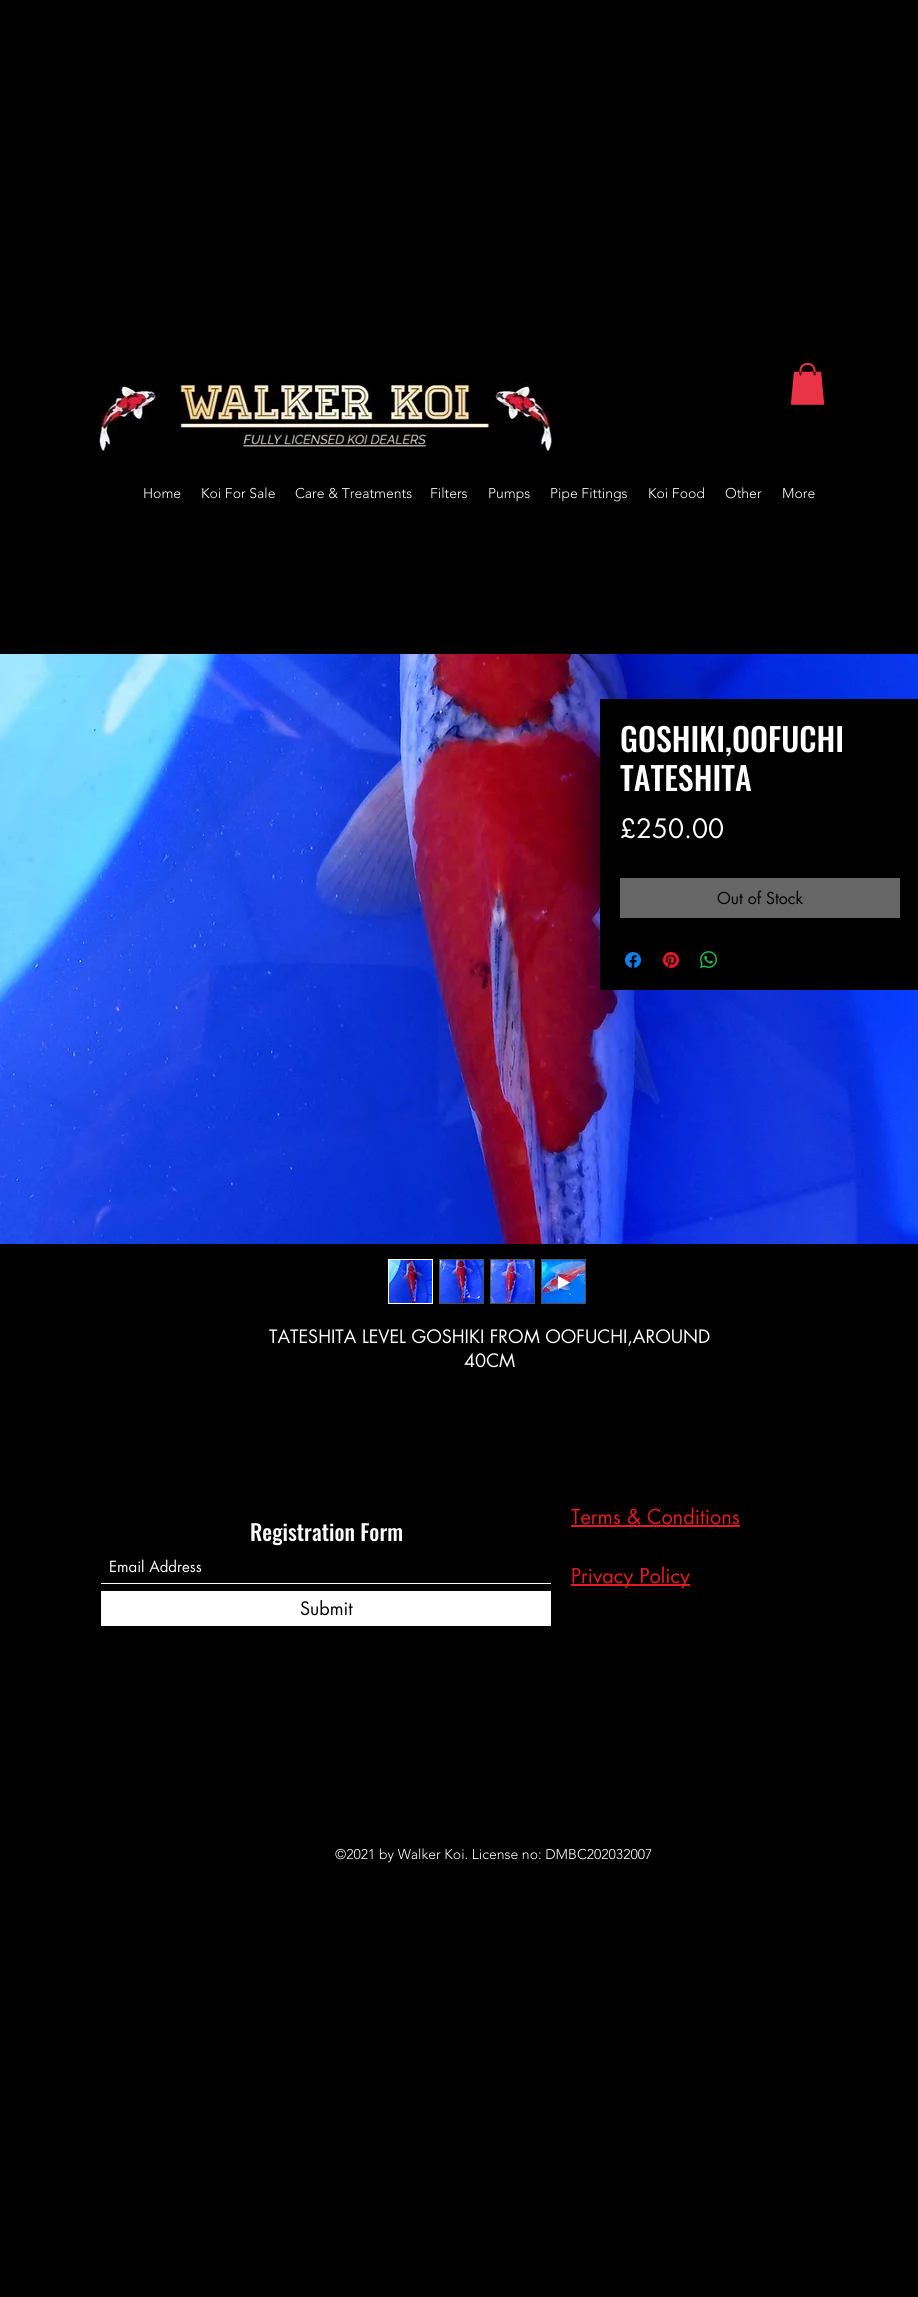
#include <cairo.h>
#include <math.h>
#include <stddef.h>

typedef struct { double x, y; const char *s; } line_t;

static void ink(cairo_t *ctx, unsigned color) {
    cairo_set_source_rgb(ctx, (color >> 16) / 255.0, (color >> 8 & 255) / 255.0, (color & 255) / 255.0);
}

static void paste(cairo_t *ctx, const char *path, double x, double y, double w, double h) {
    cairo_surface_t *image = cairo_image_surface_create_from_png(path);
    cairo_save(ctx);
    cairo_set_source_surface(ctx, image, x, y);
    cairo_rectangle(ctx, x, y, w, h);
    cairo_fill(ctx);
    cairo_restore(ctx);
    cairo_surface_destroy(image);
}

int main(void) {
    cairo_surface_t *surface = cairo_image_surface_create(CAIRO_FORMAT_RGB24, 918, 2297);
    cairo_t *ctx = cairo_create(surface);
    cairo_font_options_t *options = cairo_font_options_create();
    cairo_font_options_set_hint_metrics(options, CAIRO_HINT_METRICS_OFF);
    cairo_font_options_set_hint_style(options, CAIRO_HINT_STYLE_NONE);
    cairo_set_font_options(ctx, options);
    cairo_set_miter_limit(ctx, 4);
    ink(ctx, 0x000000);
    cairo_paint(ctx);
    paste(ctx, "media/1.png", 95, 383, 460, 68);
    paste(ctx, "media/2.png", 790, 363, 35, 42);
    cairo_select_font_face(ctx, "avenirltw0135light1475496 Light", CAIRO_FONT_SLANT_NORMAL, CAIRO_FONT_WEIGHT_NORMAL);
    cairo_set_font_size(ctx, 14);
    ink(ctx, 0xFFFFFF);
    {
        static const line_t items[] = {
            {143, 498, "Home"},
            {201, 498, "Koi For Sale"},
            {295, 498, "Care & Treatments"},
            {430, 498, "Filters"},
            {488, 498, "Pumps"},
            {550, 498, "Pipe Fittings"},
            {648, 498, "Koi Food"},
            {725, 498, "Other"},
            {782, 498, "More"},
        };
        for (size_t i = 0; i < sizeof items / sizeof *items; i++) {
            cairo_move_to(ctx, items[i].x, items[i].y);
            cairo_show_text(ctx, items[i].s);
        }
    }
    paste(ctx, "media/3.png", 0, 654, 918, 590);
    cairo_rectangle(ctx, 388.5, 1259.5, 44, 44);
    cairo_set_line_width(ctx, 1);
    cairo_stroke(ctx);
    paste(ctx, "media/4.png", 389, 1260, 43, 43);
    cairo_rectangle(ctx, 439.5, 1259.5, 44, 44);
    ink(ctx, 0x525252);
    cairo_stroke(ctx);
    paste(ctx, "media/5.png", 440, 1260, 43, 43);
    cairo_rectangle(ctx, 490.5, 1259.5, 44, 44);
    cairo_stroke(ctx);
    paste(ctx, "media/6.png", 491, 1260, 43, 43);
    cairo_rectangle(ctx, 541.5, 1259.5, 44, 44);
    cairo_stroke(ctx);
    paste(ctx, "media/7.png", 542, 1260, 43, 43);
    ink(ctx, 0xFFFFFF);
    cairo_new_path(ctx);
    cairo_move_to(ctx, 558, 1276);
    cairo_line_to(ctx, 558, 1289);
    cairo_line_to(ctx, 570, 1282.5);
    cairo_close_path(ctx);
    cairo_fill(ctx);
    ink(ctx, 0x000000);
    cairo_rectangle(ctx, 600, 699, 318, 291);
    cairo_fill(ctx);
    cairo_select_font_face(ctx, "Oswald Medium", CAIRO_FONT_SLANT_NORMAL, CAIRO_FONT_WEIGHT_NORMAL);
    cairo_set_font_size(ctx, 32);
    ink(ctx, 0xFFFFFF);
    cairo_move_to(ctx, 620, 752);
    cairo_show_text(ctx, "GOSHIKI,OOFUCHI");
    cairo_move_to(ctx, 620, 791);
    cairo_show_text(ctx, "TATESHITA");
    cairo_select_font_face(ctx, "futura", CAIRO_FONT_SLANT_NORMAL, CAIRO_FONT_WEIGHT_NORMAL);
    cairo_set_font_size(ctx, 26);
    cairo_move_to(ctx, 620, 838);
    cairo_show_text(ctx, "£250.00");
    ink(ctx, 0x666666);
    cairo_rectangle(ctx, 620, 878, 280, 40);
    cairo_fill(ctx);
    cairo_set_font_size(ctx, 16);
    ink(ctx, 0x000000);
    cairo_move_to(ctx, 717, 904);
    cairo_show_text(ctx, "Out of Stock");
    paste(ctx, "media/8.png", 625, 952, 16, 16);
    paste(ctx, "media/9.png", 663, 952, 16, 16);
    paste(ctx, "media/10.png", 700, 951, 17, 17);
    cairo_set_font_size(ctx, 18);
    ink(ctx, 0xFFFFFF);
    cairo_move_to(ctx, 269, 1343);
    cairo_show_text(ctx, "TATESHITA LEVEL GOSHIKI FROM OOFUCHI,AROUND");
    cairo_move_to(ctx, 464, 1367);
    cairo_show_text(ctx, "40CM");
    cairo_set_font_size(ctx, 20);
    ink(ctx, 0xE21C21);
    cairo_move_to(ctx, 571, 1524);
    cairo_show_text(ctx, "Terms & Conditions");
    cairo_rectangle(ctx, 571, 1525, 169, 2);
    cairo_fill(ctx);
    cairo_select_font_face(ctx, "Oswald Medium", CAIRO_FONT_SLANT_NORMAL, CAIRO_FONT_WEIGHT_NORMAL);
    cairo_set_font_size(ctx, 22);
    ink(ctx, 0xFFFFFF);
    cairo_move_to(ctx, 250, 1541);
    cairo_show_text(ctx, "Registration Form");
    cairo_rectangle(ctx, 101, 1583, 450, 1);
    cairo_fill(ctx);
    cairo_select_font_face(ctx, "futura", CAIRO_FONT_SLANT_NORMAL, CAIRO_FONT_WEIGHT_NORMAL);
    cairo_set_font_size(ctx, 15);
    cairo_move_to(ctx, 109, 1572);
    cairo_show_text(ctx, "Email Address");
    cairo_rectangle(ctx, 101, 1591, 450, 35);
    cairo_fill(ctx);
    cairo_set_font_size(ctx, 18);
    ink(ctx, 0x000000);
    cairo_move_to(ctx, 300, 1615);
    cairo_show_text(ctx, "Submit");
    ink(ctx, 0xE21C21);
    cairo_rectangle(ctx, 571, 1584, 119, 2);
    cairo_fill(ctx);
    cairo_set_font_size(ctx, 20);
    cairo_move_to(ctx, 571, 1583);
    cairo_show_text(ctx, "Privacy Policy");
    cairo_select_font_face(ctx, "avenirltw0135light1475496 Light", CAIRO_FONT_SLANT_NORMAL, CAIRO_FONT_WEIGHT_NORMAL);
    cairo_set_font_size(ctx, 14);
    ink(ctx, 0xFFFFFF);
    cairo_move_to(ctx, 335, 1859);
    cairo_show_text(ctx, "©2021 by Walker Koi. License no: DMBC202032007");
    cairo_surface_write_to_png(surface, "image.png");
    cairo_font_options_destroy(options);
    cairo_destroy(ctx);
    cairo_surface_destroy(surface);
    return 0;
}
